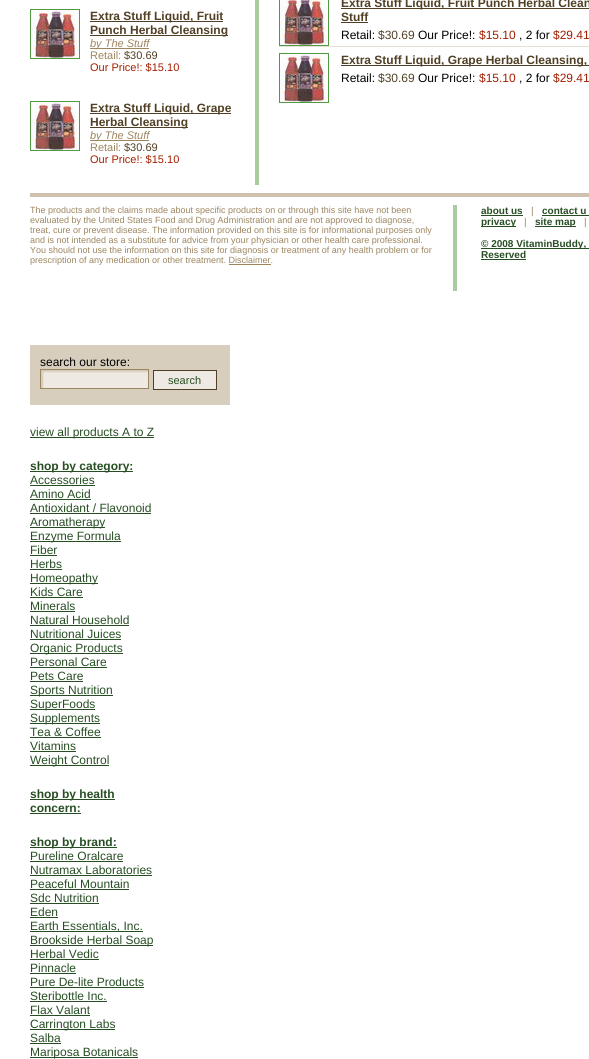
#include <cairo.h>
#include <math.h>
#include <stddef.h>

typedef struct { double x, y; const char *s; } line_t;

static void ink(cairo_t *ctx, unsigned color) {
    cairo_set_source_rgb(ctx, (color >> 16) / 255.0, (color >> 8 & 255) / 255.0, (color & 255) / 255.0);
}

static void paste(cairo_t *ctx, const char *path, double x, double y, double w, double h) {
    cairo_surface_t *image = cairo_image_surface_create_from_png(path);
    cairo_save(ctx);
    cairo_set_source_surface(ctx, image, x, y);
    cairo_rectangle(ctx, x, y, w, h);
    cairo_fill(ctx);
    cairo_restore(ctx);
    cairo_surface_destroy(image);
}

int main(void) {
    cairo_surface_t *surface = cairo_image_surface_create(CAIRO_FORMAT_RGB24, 589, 1059);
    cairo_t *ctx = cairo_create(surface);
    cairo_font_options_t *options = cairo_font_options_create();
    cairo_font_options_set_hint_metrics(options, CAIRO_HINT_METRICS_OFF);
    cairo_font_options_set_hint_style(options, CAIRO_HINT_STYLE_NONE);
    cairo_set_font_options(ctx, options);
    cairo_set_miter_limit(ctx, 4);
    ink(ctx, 0xFFFFFF);
    cairo_paint(ctx);
    ink(ctx, 0xA7CDA1);
    cairo_rectangle(ctx, 255, 0, 4, 185);
    cairo_fill(ctx);
    cairo_rectangle(ctx, 30.5, 9.5, 49, 49);
    ink(ctx, 0x4F9A43);
    cairo_set_line_width(ctx, 1);
    cairo_stroke(ctx);
    paste(ctx, "media/1.png", 31, 10, 48, 48);
    ink(ctx, 0x514025);
    cairo_rectangle(ctx, 90, 21, 133, 1);
    cairo_fill(ctx);
    cairo_select_font_face(ctx, "Liberation Sans", CAIRO_FONT_SLANT_NORMAL, CAIRO_FONT_WEIGHT_BOLD);
    cairo_set_font_size(ctx, 12);
    cairo_move_to(ctx, 90, 20);
    cairo_show_text(ctx, "Extra Stuff Liquid, Fruit");
    cairo_rectangle(ctx, 90, 35, 138, 1);
    cairo_fill(ctx);
    cairo_move_to(ctx, 90, 34);
    cairo_show_text(ctx, "Punch Herbal Cleansing");
    ink(ctx, 0x9C855F);
    cairo_rectangle(ctx, 90, 48, 59, 1);
    cairo_fill(ctx);
    cairo_select_font_face(ctx, "Liberation Sans", CAIRO_FONT_SLANT_ITALIC, CAIRO_FONT_WEIGHT_NORMAL);
    cairo_set_font_size(ctx, 11);
    cairo_move_to(ctx, 90, 47);
    cairo_show_text(ctx, "by The Stuff");
    cairo_select_font_face(ctx, "Liberation Sans", CAIRO_FONT_SLANT_NORMAL, CAIRO_FONT_WEIGHT_NORMAL);
    cairo_move_to(ctx, 90, 59);
    cairo_show_text(ctx, "Retail:");
    ink(ctx, 0x514025);
    cairo_move_to(ctx, 124, 59);
    cairo_show_text(ctx, "$30.69");
    ink(ctx, 0xA31E00);
    cairo_move_to(ctx, 90, 71);
    cairo_show_text(ctx, "Our Price!: $15.10");
    cairo_rectangle(ctx, 30.5, 101.5, 49, 49);
    ink(ctx, 0x4F9A43);
    cairo_stroke(ctx);
    paste(ctx, "media/1.png", 31, 102, 48, 48);
    ink(ctx, 0x514025);
    cairo_rectangle(ctx, 90, 113, 141, 1);
    cairo_fill(ctx);
    cairo_select_font_face(ctx, "Liberation Sans", CAIRO_FONT_SLANT_NORMAL, CAIRO_FONT_WEIGHT_BOLD);
    cairo_set_font_size(ctx, 12);
    cairo_move_to(ctx, 90, 112);
    cairo_show_text(ctx, "Extra Stuff Liquid, Grape");
    cairo_rectangle(ctx, 90, 127, 98, 1);
    cairo_fill(ctx);
    cairo_move_to(ctx, 90, 126);
    cairo_show_text(ctx, "Herbal Cleansing");
    ink(ctx, 0x9C855F);
    cairo_rectangle(ctx, 90, 140, 59, 1);
    cairo_fill(ctx);
    cairo_select_font_face(ctx, "Liberation Sans", CAIRO_FONT_SLANT_ITALIC, CAIRO_FONT_WEIGHT_NORMAL);
    cairo_set_font_size(ctx, 11);
    cairo_move_to(ctx, 90, 139);
    cairo_show_text(ctx, "by The Stuff");
    cairo_select_font_face(ctx, "Liberation Sans", CAIRO_FONT_SLANT_NORMAL, CAIRO_FONT_WEIGHT_NORMAL);
    cairo_move_to(ctx, 90, 151);
    cairo_show_text(ctx, "Retail:");
    ink(ctx, 0x514025);
    cairo_move_to(ctx, 124, 151);
    cairo_show_text(ctx, "$30.69");
    ink(ctx, 0xA31E00);
    cairo_move_to(ctx, 90, 163);
    cairo_show_text(ctx, "Our Price!: $15.10");
    cairo_rectangle(ctx, 279.5, -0.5, 49, 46);
    ink(ctx, 0x4F9A43);
    cairo_stroke(ctx);
    paste(ctx, "media/2.png", 280, 0, 48, 45);
    ink(ctx, 0x514025);
    cairo_rectangle(ctx, 341, 8, 248, 1);
    cairo_fill(ctx);
    cairo_select_font_face(ctx, "Liberation Sans", CAIRO_FONT_SLANT_NORMAL, CAIRO_FONT_WEIGHT_BOLD);
    cairo_set_font_size(ctx, 12);
    cairo_move_to(ctx, 341, 7);
    cairo_show_text(ctx, "Extra Stuff Liquid, Fruit Punch Herbal Clean");
    cairo_move_to(ctx, 341, 21);
    cairo_show_text(ctx, "Stuff");
    cairo_rectangle(ctx, 341, 22, 27, 1);
    cairo_fill(ctx);
    cairo_select_font_face(ctx, "Liberation Sans", CAIRO_FONT_SLANT_NORMAL, CAIRO_FONT_WEIGHT_NORMAL);
    ink(ctx, 0x000000);
    cairo_move_to(ctx, 341, 39);
    cairo_show_text(ctx, "Retail:");
    ink(ctx, 0x514025);
    cairo_move_to(ctx, 378, 39);
    cairo_show_text(ctx, "$30.69");
    ink(ctx, 0x000000);
    cairo_move_to(ctx, 418, 39);
    cairo_show_text(ctx, "Our Price!:");
    ink(ctx, 0xA31E00);
    cairo_move_to(ctx, 479, 39);
    cairo_show_text(ctx, "$15.10");
    ink(ctx, 0x000000);
    cairo_move_to(ctx, 519, 39);
    cairo_show_text(ctx, ", 2 for");
    ink(ctx, 0xA31E00);
    cairo_move_to(ctx, 553, 39);
    cairo_show_text(ctx, "$29.41");
    ink(ctx, 0xE6DFD5);
    cairo_rectangle(ctx, 279, 46, 310, 1);
    cairo_fill(ctx);
    cairo_rectangle(ctx, 279.5, 53.5, 49, 49);
    ink(ctx, 0x4F9A43);
    cairo_stroke(ctx);
    paste(ctx, "media/1.png", 280, 54, 48, 48);
    ink(ctx, 0x514025);
    cairo_rectangle(ctx, 341, 65, 248, 1);
    cairo_fill(ctx);
    cairo_select_font_face(ctx, "Liberation Sans", CAIRO_FONT_SLANT_NORMAL, CAIRO_FONT_WEIGHT_BOLD);
    cairo_move_to(ctx, 341, 64);
    cairo_show_text(ctx, "Extra Stuff Liquid, Grape Herbal Cleansing,");
    cairo_select_font_face(ctx, "Liberation Sans", CAIRO_FONT_SLANT_NORMAL, CAIRO_FONT_WEIGHT_NORMAL);
    ink(ctx, 0x000000);
    cairo_move_to(ctx, 341, 82);
    cairo_show_text(ctx, "Retail:");
    ink(ctx, 0x514025);
    cairo_move_to(ctx, 378, 82);
    cairo_show_text(ctx, "$30.69");
    ink(ctx, 0x000000);
    cairo_move_to(ctx, 418, 82);
    cairo_show_text(ctx, "Our Price!:");
    ink(ctx, 0xA31E00);
    cairo_move_to(ctx, 479, 82);
    cairo_show_text(ctx, "$15.10");
    ink(ctx, 0x000000);
    cairo_move_to(ctx, 519, 82);
    cairo_show_text(ctx, ", 2 for");
    ink(ctx, 0xA31E00);
    cairo_move_to(ctx, 553, 82);
    cairo_show_text(ctx, "$29.41");
    paste(ctx, "media/3.png", 30, 185, 559, 160);
    cairo_set_font_size(ctx, 9);
    ink(ctx, 0x9C855F);
    {
        static const line_t items[] = {
            {30, 213, "The products and the claims made about specific products on or through this site have not been"},
            {30, 223, "evaluated by the United States Food and Drug Administration and are not approved to diagnose,"},
            {30, 233, "treat, cure or prevent disease. The information provided on this site is for informational purposes only"},
            {30, 243, "and is not intended as a substitute for advice from your physician or other health care professional."},
            {30, 253, "You should not use the information on this site for diagnosis or treatment of any health problem or for"},
            {30, 263, "prescription of any medication or other treatment. Disclaimer."},
        };
        for (size_t i = 0; i < sizeof items / sizeof *items; i++) {
            cairo_move_to(ctx, items[i].x, items[i].y);
            cairo_show_text(ctx, items[i].s);
        }
    }
    cairo_rectangle(ctx, 229, 264, 42, 1);
    cairo_fill(ctx);
    cairo_select_font_face(ctx, "Liberation Sans", CAIRO_FONT_SLANT_NORMAL, CAIRO_FONT_WEIGHT_BOLD);
    cairo_set_font_size(ctx, 10);
    ink(ctx, 0x274E23);
    cairo_move_to(ctx, 481, 214);
    cairo_show_text(ctx, "about us");
    cairo_rectangle(ctx, 481, 215, 42, 1);
    cairo_fill(ctx);
    cairo_select_font_face(ctx, "Liberation Sans", CAIRO_FONT_SLANT_NORMAL, CAIRO_FONT_WEIGHT_NORMAL);
    ink(ctx, 0x9C855F);
    cairo_move_to(ctx, 531, 214);
    cairo_show_text(ctx, "|");
    cairo_select_font_face(ctx, "Liberation Sans", CAIRO_FONT_SLANT_NORMAL, CAIRO_FONT_WEIGHT_BOLD);
    ink(ctx, 0x274E23);
    cairo_move_to(ctx, 542, 214);
    cairo_show_text(ctx, "contact u");
    cairo_rectangle(ctx, 542, 215, 47, 1);
    cairo_fill(ctx);
    cairo_rectangle(ctx, 481, 226, 35, 1);
    cairo_fill(ctx);
    cairo_move_to(ctx, 481, 225);
    cairo_show_text(ctx, "privacy");
    cairo_select_font_face(ctx, "Liberation Sans", CAIRO_FONT_SLANT_NORMAL, CAIRO_FONT_WEIGHT_NORMAL);
    ink(ctx, 0x9C855F);
    cairo_move_to(ctx, 524, 225);
    cairo_show_text(ctx, "|");
    ink(ctx, 0x274E23);
    cairo_rectangle(ctx, 535, 226, 41, 1);
    cairo_fill(ctx);
    cairo_select_font_face(ctx, "Liberation Sans", CAIRO_FONT_SLANT_NORMAL, CAIRO_FONT_WEIGHT_BOLD);
    cairo_move_to(ctx, 535, 225);
    cairo_show_text(ctx, "site map");
    cairo_select_font_face(ctx, "Liberation Sans", CAIRO_FONT_SLANT_NORMAL, CAIRO_FONT_WEIGHT_NORMAL);
    ink(ctx, 0x9C855F);
    cairo_move_to(ctx, 584, 225);
    cairo_show_text(ctx, "|");
    ink(ctx, 0x274E23);
    cairo_rectangle(ctx, 481, 248, 108, 1);
    cairo_fill(ctx);
    cairo_select_font_face(ctx, "Liberation Sans", CAIRO_FONT_SLANT_NORMAL, CAIRO_FONT_WEIGHT_BOLD);
    cairo_move_to(ctx, 481, 247);
    cairo_show_text(ctx, "© 2008 VitaminBuddy,");
    cairo_move_to(ctx, 481, 258);
    cairo_show_text(ctx, "Reserved");
    cairo_rectangle(ctx, 481, 259, 45, 1);
    cairo_fill(ctx);
    ink(ctx, 0xD8CEBE);
    cairo_rectangle(ctx, 30, 345, 200, 60);
    cairo_fill(ctx);
    cairo_select_font_face(ctx, "Liberation Sans", CAIRO_FONT_SLANT_NORMAL, CAIRO_FONT_WEIGHT_NORMAL);
    cairo_set_font_size(ctx, 12);
    ink(ctx, 0x000000);
    cairo_move_to(ctx, 40, 366);
    cairo_show_text(ctx, "search our store:");
    paste(ctx, "media/4.png", 41, 370, 107, 18);
    cairo_rectangle(ctx, 40.5, 369.5, 108, 19);
    ink(ctx, 0x9C855F);
    cairo_stroke(ctx);
    ink(ctx, 0xEEE9E2);
    cairo_rectangle(ctx, 153.5, 370.5, 63, 19);
    cairo_fill_preserve(ctx);
    ink(ctx, 0x514025);
    cairo_stroke(ctx);
    cairo_set_font_size(ctx, 11);
    ink(ctx, 0x274E23);
    cairo_move_to(ctx, 168, 384);
    cairo_show_text(ctx, "search");
    cairo_rectangle(ctx, 30, 437, 124, 1);
    cairo_fill(ctx);
    cairo_set_font_size(ctx, 12);
    cairo_move_to(ctx, 30, 436);
    cairo_show_text(ctx, "view all products A to Z");
    cairo_rectangle(ctx, 30, 471, 103, 1);
    cairo_fill(ctx);
    cairo_select_font_face(ctx, "Liberation Sans", CAIRO_FONT_SLANT_NORMAL, CAIRO_FONT_WEIGHT_BOLD);
    cairo_move_to(ctx, 30, 470);
    cairo_show_text(ctx, "shop by category:");
    cairo_select_font_face(ctx, "Liberation Sans", CAIRO_FONT_SLANT_NORMAL, CAIRO_FONT_WEIGHT_NORMAL);
    cairo_move_to(ctx, 30, 484);
    cairo_show_text(ctx, "Accessories");
    cairo_rectangle(ctx, 30, 485, 65, 1);
    cairo_fill(ctx);
    cairo_move_to(ctx, 30, 498);
    cairo_show_text(ctx, "Amino Acid");
    cairo_rectangle(ctx, 30, 499, 61, 1);
    cairo_fill(ctx);
    cairo_move_to(ctx, 30, 512);
    cairo_show_text(ctx, "Antioxidant / Flavonoid");
    cairo_rectangle(ctx, 30, 513, 121, 1);
    cairo_fill(ctx);
    cairo_rectangle(ctx, 30, 527, 75, 1);
    cairo_fill(ctx);
    cairo_move_to(ctx, 30, 526);
    cairo_show_text(ctx, "Aromatherapy");
    cairo_rectangle(ctx, 30, 541, 91, 1);
    cairo_fill(ctx);
    cairo_move_to(ctx, 30, 540);
    cairo_show_text(ctx, "Enzyme Formula");
    cairo_move_to(ctx, 30, 554);
    cairo_show_text(ctx, "Fiber");
    cairo_rectangle(ctx, 30, 555, 27, 1);
    cairo_fill(ctx);
    cairo_move_to(ctx, 30, 568);
    cairo_show_text(ctx, "Herbs");
    cairo_rectangle(ctx, 30, 569, 32, 1);
    cairo_fill(ctx);
    cairo_rectangle(ctx, 30, 583, 68, 1);
    cairo_fill(ctx);
    cairo_move_to(ctx, 30, 582);
    cairo_show_text(ctx, "Homeopathy");
    cairo_move_to(ctx, 30, 596);
    cairo_show_text(ctx, "Kids Care");
    cairo_rectangle(ctx, 30, 597, 53, 1);
    cairo_fill(ctx);
    cairo_move_to(ctx, 30, 610);
    cairo_show_text(ctx, "Minerals");
    cairo_rectangle(ctx, 30, 611, 45, 1);
    cairo_fill(ctx);
    cairo_move_to(ctx, 30, 624);
    cairo_show_text(ctx, "Natural Household");
    cairo_rectangle(ctx, 30, 625, 99, 1);
    cairo_fill(ctx);
    cairo_move_to(ctx, 30, 638);
    cairo_show_text(ctx, "Nutritional Juices");
    cairo_rectangle(ctx, 30, 639, 91, 1);
    cairo_fill(ctx);
    cairo_rectangle(ctx, 30, 653, 93, 1);
    cairo_fill(ctx);
    cairo_move_to(ctx, 30, 652);
    cairo_show_text(ctx, "Organic Products");
    cairo_move_to(ctx, 30, 666);
    cairo_show_text(ctx, "Personal Care");
    cairo_rectangle(ctx, 30, 667, 77, 1);
    cairo_fill(ctx);
    cairo_move_to(ctx, 30, 680);
    cairo_show_text(ctx, "Pets Care");
    cairo_rectangle(ctx, 30, 681, 53, 1);
    cairo_fill(ctx);
    cairo_rectangle(ctx, 30, 695, 83, 1);
    cairo_fill(ctx);
    cairo_move_to(ctx, 30, 694);
    cairo_show_text(ctx, "Sports Nutrition");
    cairo_rectangle(ctx, 30, 709, 65, 1);
    cairo_fill(ctx);
    cairo_move_to(ctx, 30, 708);
    cairo_show_text(ctx, "SuperFoods");
    cairo_rectangle(ctx, 30, 723, 70, 1);
    cairo_fill(ctx);
    cairo_move_to(ctx, 30, 722);
    cairo_show_text(ctx, "Supplements");
    cairo_move_to(ctx, 30, 736);
    cairo_show_text(ctx, "Tea & Coffee");
    cairo_rectangle(ctx, 30, 737, 71, 1);
    cairo_fill(ctx);
    cairo_move_to(ctx, 30, 750);
    cairo_show_text(ctx, "Vitamins");
    cairo_rectangle(ctx, 30, 751, 46, 1);
    cairo_fill(ctx);
    cairo_rectangle(ctx, 30, 765, 79, 1);
    cairo_fill(ctx);
    cairo_move_to(ctx, 30, 764);
    cairo_show_text(ctx, "Weight Control");
    cairo_rectangle(ctx, 30, 799, 85, 1);
    cairo_fill(ctx);
    cairo_select_font_face(ctx, "Liberation Sans", CAIRO_FONT_SLANT_NORMAL, CAIRO_FONT_WEIGHT_BOLD);
    cairo_move_to(ctx, 30, 798);
    cairo_show_text(ctx, "shop by health");
    cairo_move_to(ctx, 30, 812);
    cairo_show_text(ctx, "concern:");
    cairo_rectangle(ctx, 30, 813, 51, 1);
    cairo_fill(ctx);
    cairo_rectangle(ctx, 30, 847, 87, 1);
    cairo_fill(ctx);
    cairo_move_to(ctx, 30, 846);
    cairo_show_text(ctx, "shop by brand:");
    cairo_select_font_face(ctx, "Liberation Sans", CAIRO_FONT_SLANT_NORMAL, CAIRO_FONT_WEIGHT_NORMAL);
    cairo_move_to(ctx, 30, 860);
    cairo_show_text(ctx, "Pureline Oralcare");
    cairo_rectangle(ctx, 30, 861, 93, 1);
    cairo_fill(ctx);
    cairo_move_to(ctx, 30, 874);
    cairo_show_text(ctx, "Nutramax Laboratories");
    cairo_rectangle(ctx, 30, 875, 122, 1);
    cairo_fill(ctx);
    cairo_move_to(ctx, 30, 888);
    cairo_show_text(ctx, "Peaceful Mountain");
    cairo_rectangle(ctx, 30, 889, 99, 1);
    cairo_fill(ctx);
    cairo_move_to(ctx, 30, 902);
    cairo_show_text(ctx, "Sdc Nutrition");
    cairo_rectangle(ctx, 30, 903, 69, 1);
    cairo_fill(ctx);
    cairo_move_to(ctx, 30, 916);
    cairo_show_text(ctx, "Eden");
    cairo_rectangle(ctx, 30, 917, 28, 1);
    cairo_fill(ctx);
    cairo_rectangle(ctx, 30, 931, 113, 1);
    cairo_fill(ctx);
    cairo_move_to(ctx, 30, 930);
    cairo_show_text(ctx, "Earth Essentials, Inc.");
    cairo_rectangle(ctx, 30, 945, 123, 1);
    cairo_fill(ctx);
    cairo_move_to(ctx, 30, 944);
    cairo_show_text(ctx, "Brookside Herbal Soap");
    cairo_move_to(ctx, 30, 958);
    cairo_show_text(ctx, "Herbal Vedic");
    cairo_rectangle(ctx, 30, 959, 69, 1);
    cairo_fill(ctx);
    cairo_move_to(ctx, 30, 972);
    cairo_show_text(ctx, "Pinnacle");
    cairo_rectangle(ctx, 30, 973, 46, 1);
    cairo_fill(ctx);
    cairo_move_to(ctx, 30, 986);
    cairo_show_text(ctx, "Pure De-lite Products");
    cairo_rectangle(ctx, 30, 987, 114, 1);
    cairo_fill(ctx);
    cairo_move_to(ctx, 30, 1000);
    cairo_show_text(ctx, "Steribottle Inc.");
    cairo_rectangle(ctx, 30, 1001, 77, 1);
    cairo_fill(ctx);
    cairo_move_to(ctx, 30, 1014);
    cairo_show_text(ctx, "Flax Valant");
    cairo_rectangle(ctx, 30, 1015, 60, 1);
    cairo_fill(ctx);
    cairo_rectangle(ctx, 30, 1029, 85, 1);
    cairo_fill(ctx);
    cairo_move_to(ctx, 30, 1028);
    cairo_show_text(ctx, "Carrington Labs");
    cairo_move_to(ctx, 30, 1042);
    cairo_show_text(ctx, "Salba");
    cairo_rectangle(ctx, 30, 1043, 31, 1);
    cairo_fill(ctx);
    cairo_rectangle(ctx, 30, 1057, 108, 1);
    cairo_fill(ctx);
    cairo_move_to(ctx, 30, 1056);
    cairo_show_text(ctx, "Mariposa Botanicals");
    cairo_surface_write_to_png(surface, "image.png");
    cairo_font_options_destroy(options);
    cairo_destroy(ctx);
    cairo_surface_destroy(surface);
    return 0;
}
